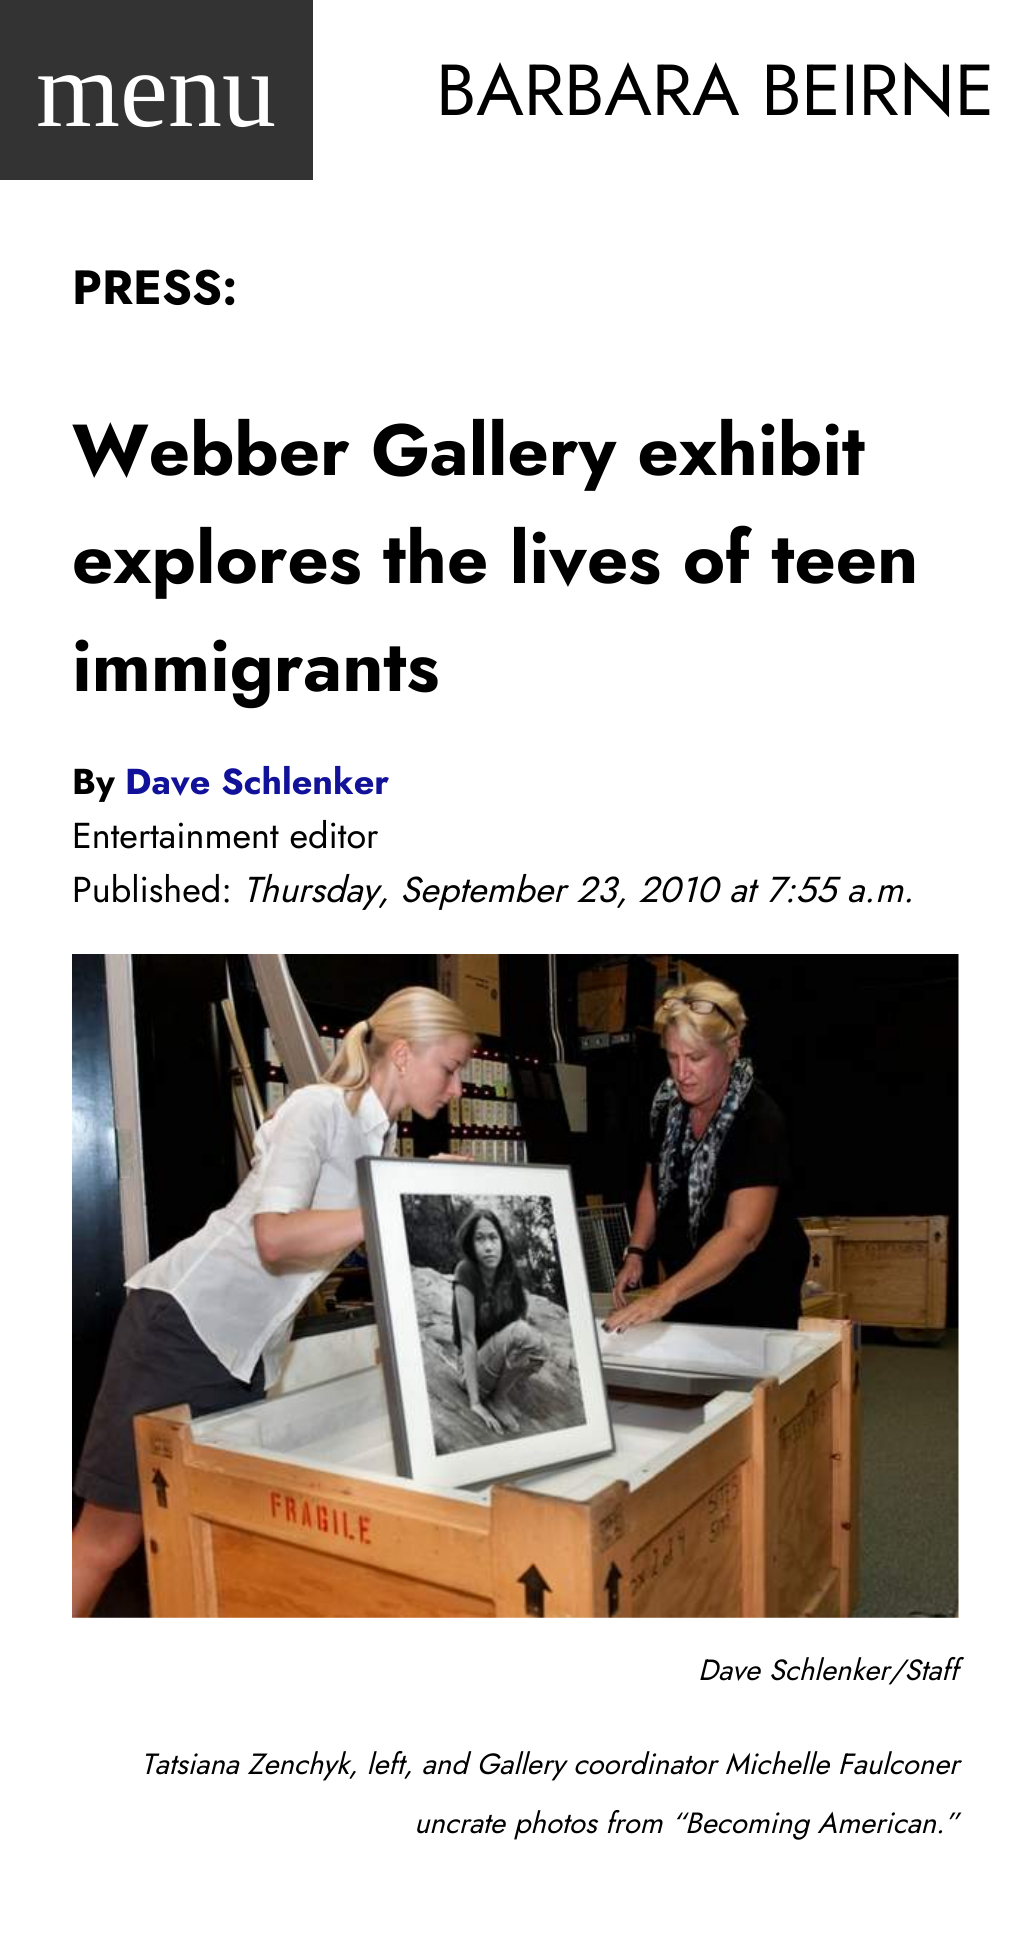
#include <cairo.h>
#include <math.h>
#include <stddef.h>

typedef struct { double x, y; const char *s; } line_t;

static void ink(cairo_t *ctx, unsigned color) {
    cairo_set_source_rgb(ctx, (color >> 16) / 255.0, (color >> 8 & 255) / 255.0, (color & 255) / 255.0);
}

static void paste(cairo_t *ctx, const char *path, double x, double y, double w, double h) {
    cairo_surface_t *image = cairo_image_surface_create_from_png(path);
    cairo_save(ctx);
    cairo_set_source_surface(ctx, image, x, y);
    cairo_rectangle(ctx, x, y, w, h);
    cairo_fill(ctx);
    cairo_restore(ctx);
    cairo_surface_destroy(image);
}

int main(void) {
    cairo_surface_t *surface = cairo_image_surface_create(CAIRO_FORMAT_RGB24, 1029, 1946);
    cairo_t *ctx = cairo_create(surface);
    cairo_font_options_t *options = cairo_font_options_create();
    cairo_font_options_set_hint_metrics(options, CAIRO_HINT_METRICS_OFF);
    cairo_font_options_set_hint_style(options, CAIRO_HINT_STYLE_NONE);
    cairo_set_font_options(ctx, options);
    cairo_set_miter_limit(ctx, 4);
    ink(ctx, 0xFFFFFF);
    cairo_paint(ctx);
    ink(ctx, 0x333333);
    cairo_rectangle(ctx, 0, 0, 313, 180);
    cairo_fill(ctx);
    cairo_select_font_face(ctx, "Liberation Serif", CAIRO_FONT_SLANT_NORMAL, CAIRO_FONT_WEIGHT_NORMAL);
    cairo_set_font_size(ctx, 108);
    ink(ctx, 0xFFFFFF);
    cairo_move_to(ctx, 36, 126);
    cairo_show_text(ctx, "menu");
    cairo_select_font_face(ctx, "Jost", CAIRO_FONT_SLANT_NORMAL, CAIRO_FONT_WEIGHT_NORMAL);
    cairo_set_font_size(ctx, 72);
    ink(ctx, 0x000000);
    cairo_move_to(ctx, 436, 115);
    cairo_show_text(ctx, "BARBARA BEIRNE");
    cairo_select_font_face(ctx, "Jost", CAIRO_FONT_SLANT_NORMAL, CAIRO_FONT_WEIGHT_BOLD);
    cairo_set_font_size(ctx, 48);
    cairo_move_to(ctx, 72, 304);
    cairo_show_text(ctx, "PRESS:");
    cairo_set_font_size(ctx, 72);
    {
        static const line_t items[] = {
            {72, 475, "Webber Gallery exhibit"},
            {72, 583, "explores the lives of teen"},
            {72, 691, "immigrants"},
        };
        for (size_t i = 0; i < sizeof items / sizeof *items; i++) {
            cairo_move_to(ctx, items[i].x, items[i].y);
            cairo_show_text(ctx, items[i].s);
        }
    }
    cairo_set_font_size(ctx, 36);
    cairo_move_to(ctx, 72, 794);
    cairo_show_text(ctx, "By");
    ink(ctx, 0x111199);
    cairo_move_to(ctx, 125, 794);
    cairo_show_text(ctx, "Dave Schlenker");
    cairo_select_font_face(ctx, "Jost", CAIRO_FONT_SLANT_NORMAL, CAIRO_FONT_WEIGHT_NORMAL);
    ink(ctx, 0x000000);
    cairo_move_to(ctx, 72, 848);
    cairo_show_text(ctx, "Entertainment editor");
    cairo_move_to(ctx, 72, 902);
    cairo_show_text(ctx, "Published:");
    cairo_select_font_face(ctx, "Jost", CAIRO_FONT_SLANT_ITALIC, CAIRO_FONT_WEIGHT_NORMAL);
    cairo_move_to(ctx, 243, 902);
    cairo_show_text(ctx, "Thursday, September 23, 2010 at 7:55 a.m.");
    paste(ctx, "media/1.png", 72, 954, 887, 664);
    cairo_set_font_size(ctx, 29.25);
    {
        static const line_t items[] = {
            {698, 1680, "Dave Schlenker/Staff"},
            {141, 1774, "Tatsiana Zenchyk, left, and Gallery coordinator Michelle Faulconer"},
            {414, 1833, "uncrate photos from “Becoming American.”"},
        };
        for (size_t i = 0; i < sizeof items / sizeof *items; i++) {
            cairo_move_to(ctx, items[i].x, items[i].y);
            cairo_show_text(ctx, items[i].s);
        }
    }
    cairo_surface_write_to_png(surface, "image.png");
    cairo_font_options_destroy(options);
    cairo_destroy(ctx);
    cairo_surface_destroy(surface);
    return 0;
}
